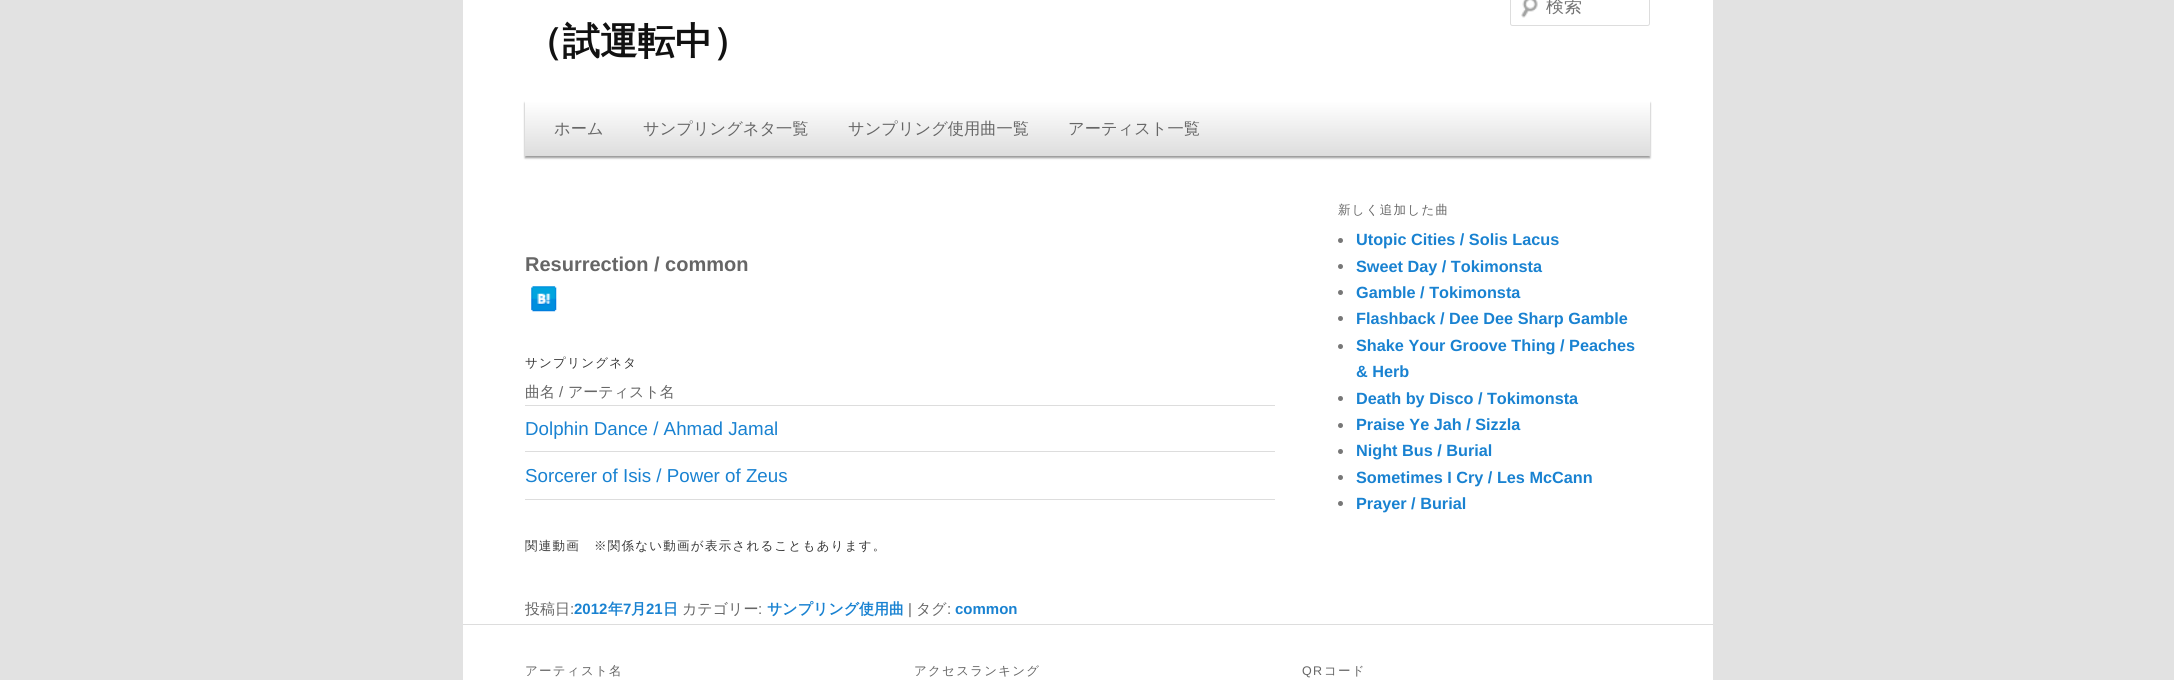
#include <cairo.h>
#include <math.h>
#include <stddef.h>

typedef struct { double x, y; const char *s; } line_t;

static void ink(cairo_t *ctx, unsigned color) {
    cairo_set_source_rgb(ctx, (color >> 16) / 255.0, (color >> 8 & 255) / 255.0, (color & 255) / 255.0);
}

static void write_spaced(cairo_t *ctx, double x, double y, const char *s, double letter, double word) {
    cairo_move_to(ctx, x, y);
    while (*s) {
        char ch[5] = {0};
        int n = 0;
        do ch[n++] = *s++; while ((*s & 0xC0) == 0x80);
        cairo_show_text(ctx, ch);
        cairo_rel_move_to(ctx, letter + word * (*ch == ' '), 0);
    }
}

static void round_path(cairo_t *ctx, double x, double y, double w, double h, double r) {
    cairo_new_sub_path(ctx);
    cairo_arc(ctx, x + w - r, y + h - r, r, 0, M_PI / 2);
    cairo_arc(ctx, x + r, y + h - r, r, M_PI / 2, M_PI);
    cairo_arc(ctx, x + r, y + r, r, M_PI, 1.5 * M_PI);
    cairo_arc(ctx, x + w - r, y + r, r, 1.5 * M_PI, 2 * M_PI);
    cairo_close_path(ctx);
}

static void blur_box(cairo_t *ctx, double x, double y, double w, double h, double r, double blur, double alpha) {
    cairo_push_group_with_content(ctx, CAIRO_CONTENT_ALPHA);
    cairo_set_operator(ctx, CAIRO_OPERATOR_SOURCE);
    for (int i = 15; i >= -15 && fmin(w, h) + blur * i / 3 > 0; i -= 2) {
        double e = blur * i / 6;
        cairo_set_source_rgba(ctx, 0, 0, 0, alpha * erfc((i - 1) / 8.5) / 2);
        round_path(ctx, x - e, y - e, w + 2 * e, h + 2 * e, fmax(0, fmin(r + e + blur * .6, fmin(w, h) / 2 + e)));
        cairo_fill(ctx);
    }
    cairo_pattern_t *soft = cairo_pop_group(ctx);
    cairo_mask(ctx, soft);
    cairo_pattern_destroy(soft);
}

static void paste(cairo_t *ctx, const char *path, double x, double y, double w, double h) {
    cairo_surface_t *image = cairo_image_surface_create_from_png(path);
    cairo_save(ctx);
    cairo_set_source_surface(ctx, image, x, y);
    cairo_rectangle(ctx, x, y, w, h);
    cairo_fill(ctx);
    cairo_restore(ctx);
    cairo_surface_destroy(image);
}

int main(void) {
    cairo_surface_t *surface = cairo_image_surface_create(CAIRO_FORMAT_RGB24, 2174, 680);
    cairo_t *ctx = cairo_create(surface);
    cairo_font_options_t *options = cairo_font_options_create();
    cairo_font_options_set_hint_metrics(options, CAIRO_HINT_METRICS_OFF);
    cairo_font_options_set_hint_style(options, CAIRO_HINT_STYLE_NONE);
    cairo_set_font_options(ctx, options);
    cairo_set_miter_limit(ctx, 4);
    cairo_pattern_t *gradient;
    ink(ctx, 0xE2E2E2);
    cairo_paint(ctx);
    ink(ctx, 0xFFFFFF);
    cairo_rectangle(ctx, 463, 0, 1250, 680);
    cairo_fill(ctx);
    paste(ctx, "media/1.png", 1521, 0, 17, 18);
    round_path(ctx, 1510.5, -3.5, 139, 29, 2);
    ink(ctx, 0xDDDDDD);
    cairo_set_line_width(ctx, 1);
    cairo_stroke(ctx);
    cairo_select_font_face(ctx, "WenQuanYi Zen Hei Medium", CAIRO_FONT_SLANT_NORMAL, CAIRO_FONT_WEIGHT_NORMAL);
    cairo_set_font_size(ctx, 18);
    ink(ctx, 0x757575);
    cairo_move_to(ctx, 1546, 12);
    cairo_show_text(ctx, "検索");
    cairo_select_font_face(ctx, "WenQuanYi Zen Hei", CAIRO_FONT_SLANT_NORMAL, CAIRO_FONT_WEIGHT_BOLD);
    cairo_set_font_size(ctx, 37.5);
    ink(ctx, 0x111111);
    cairo_move_to(ctx, 525, 54);
    cairo_show_text(ctx, "（試運転中）");
    ink(ctx, 0x000000);
    blur_box(ctx, 525, 103, 1125, 55, 0, 1, 0.4);
    gradient = cairo_pattern_create_linear(1088, 101, 1088, 156);
    cairo_pattern_add_color_stop_rgba(gradient, 0, 1, 1, 1, 1);
    cairo_pattern_add_color_stop_rgba(gradient, 1, 0.867, 0.867, 0.867, 1);
    cairo_set_source(ctx, gradient);
    cairo_pattern_destroy(gradient);
    cairo_rectangle(ctx, 525, 101, 1125, 55);
    cairo_fill(ctx);
    cairo_select_font_face(ctx, "WenQuanYi Zen Hei Medium", CAIRO_FONT_SLANT_NORMAL, CAIRO_FONT_WEIGHT_NORMAL);
    cairo_set_font_size(ctx, 16.25);
    ink(ctx, 0x666666);
    {
        static const line_t items[] = {
            {554, 134, "ホーム"},
            {643, 134, "サンプリングネタ一覧"},
            {848, 134, "サンプリング使用曲一覧"},
            {1068, 134, "アーティスト一覧"},
        };
        for (size_t i = 0; i < sizeof items / sizeof *items; i++) {
            cairo_move_to(ctx, items[i].x, items[i].y);
            cairo_show_text(ctx, items[i].s);
        }
    }
    cairo_select_font_face(ctx, "Liberation Sans", CAIRO_FONT_SLANT_NORMAL, CAIRO_FONT_WEIGHT_BOLD);
    cairo_set_font_size(ctx, 20);
    cairo_move_to(ctx, 525, 271);
    cairo_show_text(ctx, "Resurrection / common");
    paste(ctx, "media/2.png", 531, 286, 26, 26);
    cairo_select_font_face(ctx, "WenQuanYi Zen Hei Medium", CAIRO_FONT_SLANT_NORMAL, CAIRO_FONT_WEIGHT_NORMAL);
    cairo_set_font_size(ctx, 12.5);
    ink(ctx, 0x373737);
    write_spaced(ctx, 525, 367, "サンプリングネタ", 1.25, 0);
    ink(ctx, 0xDDDDDD);
    cairo_rectangle(ctx, 525, 499, 750, 1);
    cairo_fill(ctx);
    cairo_set_font_size(ctx, 15);
    ink(ctx, 0x666666);
    cairo_move_to(ctx, 525, 397);
    cairo_show_text(ctx, "曲名");
    cairo_select_font_face(ctx, "Liberation Sans", CAIRO_FONT_SLANT_NORMAL, CAIRO_FONT_WEIGHT_NORMAL);
    cairo_move_to(ctx, 559, 397);
    cairo_show_text(ctx, "/");
    cairo_select_font_face(ctx, "WenQuanYi Zen Hei Medium", CAIRO_FONT_SLANT_NORMAL, CAIRO_FONT_WEIGHT_NORMAL);
    cairo_move_to(ctx, 568, 397);
    cairo_show_text(ctx, "アーティスト名");
    ink(ctx, 0xDDDDDD);
    cairo_rectangle(ctx, 525, 405, 750, 1);
    cairo_fill(ctx);
    cairo_select_font_face(ctx, "Liberation Sans", CAIRO_FONT_SLANT_NORMAL, CAIRO_FONT_WEIGHT_NORMAL);
    cairo_set_font_size(ctx, 18.75);
    ink(ctx, 0x1982D1);
    cairo_move_to(ctx, 525, 435);
    cairo_show_text(ctx, "Dolphin Dance / Ahmad Jamal");
    ink(ctx, 0xDDDDDD);
    cairo_rectangle(ctx, 525, 451, 750, 1);
    cairo_fill(ctx);
    ink(ctx, 0x1982D1);
    cairo_move_to(ctx, 525, 482);
    cairo_show_text(ctx, "Sorcerer of Isis / Power of Zeus");
    cairo_select_font_face(ctx, "WenQuanYi Zen Hei Medium", CAIRO_FONT_SLANT_NORMAL, CAIRO_FONT_WEIGHT_NORMAL);
    cairo_set_font_size(ctx, 12.5);
    ink(ctx, 0x373737);
    write_spaced(ctx, 525, 550, "関連動画", 1.25, 0);
    write_spaced(ctx, 594, 550, "※関係ない動画が表示されることもあります。", 1.25, 0);
    cairo_set_font_size(ctx, 15);
    ink(ctx, 0x666666);
    cairo_move_to(ctx, 525, 614);
    cairo_show_text(ctx, "投稿日");
    cairo_select_font_face(ctx, "Liberation Sans", CAIRO_FONT_SLANT_NORMAL, CAIRO_FONT_WEIGHT_NORMAL);
    cairo_move_to(ctx, 570, 614);
    cairo_show_text(ctx, ":");
    cairo_select_font_face(ctx, "Liberation Sans", CAIRO_FONT_SLANT_NORMAL, CAIRO_FONT_WEIGHT_BOLD);
    ink(ctx, 0x1982D1);
    cairo_move_to(ctx, 574, 614);
    cairo_show_text(ctx, "2012");
    cairo_select_font_face(ctx, "WenQuanYi Zen Hei", CAIRO_FONT_SLANT_NORMAL, CAIRO_FONT_WEIGHT_BOLD);
    cairo_move_to(ctx, 608, 614);
    cairo_show_text(ctx, "年");
    cairo_select_font_face(ctx, "Liberation Sans", CAIRO_FONT_SLANT_NORMAL, CAIRO_FONT_WEIGHT_BOLD);
    cairo_move_to(ctx, 623, 614);
    cairo_show_text(ctx, "7");
    cairo_select_font_face(ctx, "WenQuanYi Zen Hei", CAIRO_FONT_SLANT_NORMAL, CAIRO_FONT_WEIGHT_BOLD);
    cairo_move_to(ctx, 631, 614);
    cairo_show_text(ctx, "月");
    cairo_select_font_face(ctx, "Liberation Sans", CAIRO_FONT_SLANT_NORMAL, CAIRO_FONT_WEIGHT_BOLD);
    cairo_move_to(ctx, 646, 614);
    cairo_show_text(ctx, "21");
    cairo_select_font_face(ctx, "WenQuanYi Zen Hei", CAIRO_FONT_SLANT_NORMAL, CAIRO_FONT_WEIGHT_BOLD);
    cairo_move_to(ctx, 663, 614);
    cairo_show_text(ctx, "日");
    cairo_select_font_face(ctx, "WenQuanYi Zen Hei Medium", CAIRO_FONT_SLANT_NORMAL, CAIRO_FONT_WEIGHT_NORMAL);
    ink(ctx, 0x666666);
    cairo_move_to(ctx, 682, 614);
    cairo_show_text(ctx, "カテゴリー");
    cairo_select_font_face(ctx, "Liberation Sans", CAIRO_FONT_SLANT_NORMAL, CAIRO_FONT_WEIGHT_NORMAL);
    cairo_move_to(ctx, 758, 614);
    cairo_show_text(ctx, ":");
    cairo_select_font_face(ctx, "WenQuanYi Zen Hei", CAIRO_FONT_SLANT_NORMAL, CAIRO_FONT_WEIGHT_BOLD);
    ink(ctx, 0x1982D1);
    cairo_move_to(ctx, 767, 614);
    cairo_show_text(ctx, "サンプリング使用曲");
    cairo_select_font_face(ctx, "Liberation Sans", CAIRO_FONT_SLANT_NORMAL, CAIRO_FONT_WEIGHT_NORMAL);
    ink(ctx, 0x666666);
    cairo_move_to(ctx, 908, 614);
    cairo_show_text(ctx, "|");
    cairo_select_font_face(ctx, "WenQuanYi Zen Hei Medium", CAIRO_FONT_SLANT_NORMAL, CAIRO_FONT_WEIGHT_NORMAL);
    cairo_move_to(ctx, 916, 614);
    cairo_show_text(ctx, "タグ");
    cairo_select_font_face(ctx, "Liberation Sans", CAIRO_FONT_SLANT_NORMAL, CAIRO_FONT_WEIGHT_NORMAL);
    cairo_move_to(ctx, 947, 614);
    cairo_show_text(ctx, ":");
    cairo_select_font_face(ctx, "Liberation Sans", CAIRO_FONT_SLANT_NORMAL, CAIRO_FONT_WEIGHT_BOLD);
    ink(ctx, 0x1982D1);
    cairo_move_to(ctx, 955, 614);
    cairo_show_text(ctx, "common");
    cairo_select_font_face(ctx, "WenQuanYi Zen Hei Medium", CAIRO_FONT_SLANT_NORMAL, CAIRO_FONT_WEIGHT_NORMAL);
    cairo_set_font_size(ctx, 12.5);
    ink(ctx, 0x666666);
    write_spaced(ctx, 1338, 214, "新しく追加した曲", 1.25, 0);
    ink(ctx, 0x777777);
    cairo_new_path(ctx);
    cairo_arc(ctx, 1340.5, 240.5, 2.5, 0, 2 * M_PI);
    cairo_fill(ctx);
    cairo_select_font_face(ctx, "Liberation Sans", CAIRO_FONT_SLANT_NORMAL, CAIRO_FONT_WEIGHT_BOLD);
    cairo_set_font_size(ctx, 16.25);
    ink(ctx, 0x1982D1);
    cairo_move_to(ctx, 1356, 245);
    cairo_show_text(ctx, "Utopic Cities / Solis Lacus");
    ink(ctx, 0x777777);
    cairo_new_path(ctx);
    cairo_arc(ctx, 1340.5, 266.5, 2.5, 0, 2 * M_PI);
    cairo_fill(ctx);
    ink(ctx, 0x1982D1);
    cairo_move_to(ctx, 1356, 272);
    cairo_show_text(ctx, "Sweet Day / Tokimonsta");
    ink(ctx, 0x777777);
    cairo_new_path(ctx);
    cairo_arc(ctx, 1340.5, 292.5, 2.5, 0, 2 * M_PI);
    cairo_fill(ctx);
    ink(ctx, 0x1982D1);
    cairo_move_to(ctx, 1356, 298);
    cairo_show_text(ctx, "Gamble / Tokimonsta");
    ink(ctx, 0x777777);
    cairo_new_path(ctx);
    cairo_arc(ctx, 1340.5, 318.5, 2.5, 0, 2 * M_PI);
    cairo_fill(ctx);
    ink(ctx, 0x1982D1);
    cairo_move_to(ctx, 1356, 324);
    cairo_show_text(ctx, "Flashback / Dee Dee Sharp Gamble");
    ink(ctx, 0x777777);
    cairo_new_path(ctx);
    cairo_arc(ctx, 1340.5, 346.5, 2.5, 0, 2 * M_PI);
    cairo_fill(ctx);
    ink(ctx, 0x1982D1);
    cairo_move_to(ctx, 1356, 351);
    cairo_show_text(ctx, "Shake Your Groove Thing / Peaches");
    cairo_move_to(ctx, 1356, 377);
    cairo_show_text(ctx, "& Herb");
    ink(ctx, 0x777777);
    cairo_new_path(ctx);
    cairo_arc(ctx, 1340.5, 398.5, 2.5, 0, 2 * M_PI);
    cairo_fill(ctx);
    ink(ctx, 0x1982D1);
    cairo_move_to(ctx, 1356, 404);
    cairo_show_text(ctx, "Death by Disco / Tokimonsta");
    ink(ctx, 0x777777);
    cairo_new_path(ctx);
    cairo_arc(ctx, 1340.5, 425.5, 2.5, 0, 2 * M_PI);
    cairo_fill(ctx);
    ink(ctx, 0x1982D1);
    cairo_move_to(ctx, 1356, 430);
    cairo_show_text(ctx, "Praise Ye Jah / Sizzla");
    ink(ctx, 0x777777);
    cairo_new_path(ctx);
    cairo_arc(ctx, 1340.5, 451.5, 2.5, 0, 2 * M_PI);
    cairo_fill(ctx);
    ink(ctx, 0x1982D1);
    cairo_move_to(ctx, 1356, 456);
    cairo_show_text(ctx, "Night Bus / Burial");
    ink(ctx, 0x777777);
    cairo_new_path(ctx);
    cairo_arc(ctx, 1340.5, 477.5, 2.5, 0, 2 * M_PI);
    cairo_fill(ctx);
    ink(ctx, 0x1982D1);
    cairo_move_to(ctx, 1356, 483);
    cairo_show_text(ctx, "Sometimes I Cry / Les McCann");
    ink(ctx, 0x777777);
    cairo_new_path(ctx);
    cairo_arc(ctx, 1340.5, 503.5, 2.5, 0, 2 * M_PI);
    cairo_fill(ctx);
    ink(ctx, 0x1982D1);
    cairo_move_to(ctx, 1356, 509);
    cairo_show_text(ctx, "Prayer / Burial");
    ink(ctx, 0xDDDDDD);
    cairo_rectangle(ctx, 463, 624, 1250, 1);
    cairo_fill(ctx);
    cairo_select_font_face(ctx, "WenQuanYi Zen Hei Medium", CAIRO_FONT_SLANT_NORMAL, CAIRO_FONT_WEIGHT_NORMAL);
    cairo_set_font_size(ctx, 12.5);
    ink(ctx, 0x666666);
    write_spaced(ctx, 525, 675, "アーティスト名", 1.25, 0);
    write_spaced(ctx, 914, 675, "アクセスランキング", 1.25, 0);
    cairo_select_font_face(ctx, "Liberation Sans", CAIRO_FONT_SLANT_NORMAL, CAIRO_FONT_WEIGHT_NORMAL);
    write_spaced(ctx, 1302, 675, "QR", 1.25, 0);
    cairo_select_font_face(ctx, "WenQuanYi Zen Hei Medium", CAIRO_FONT_SLANT_NORMAL, CAIRO_FONT_WEIGHT_NORMAL);
    write_spaced(ctx, 1324, 675, "コード", 1.25, 0);
    cairo_surface_write_to_png(surface, "image.png");
    cairo_font_options_destroy(options);
    cairo_destroy(ctx);
    cairo_surface_destroy(surface);
    return 0;
}
